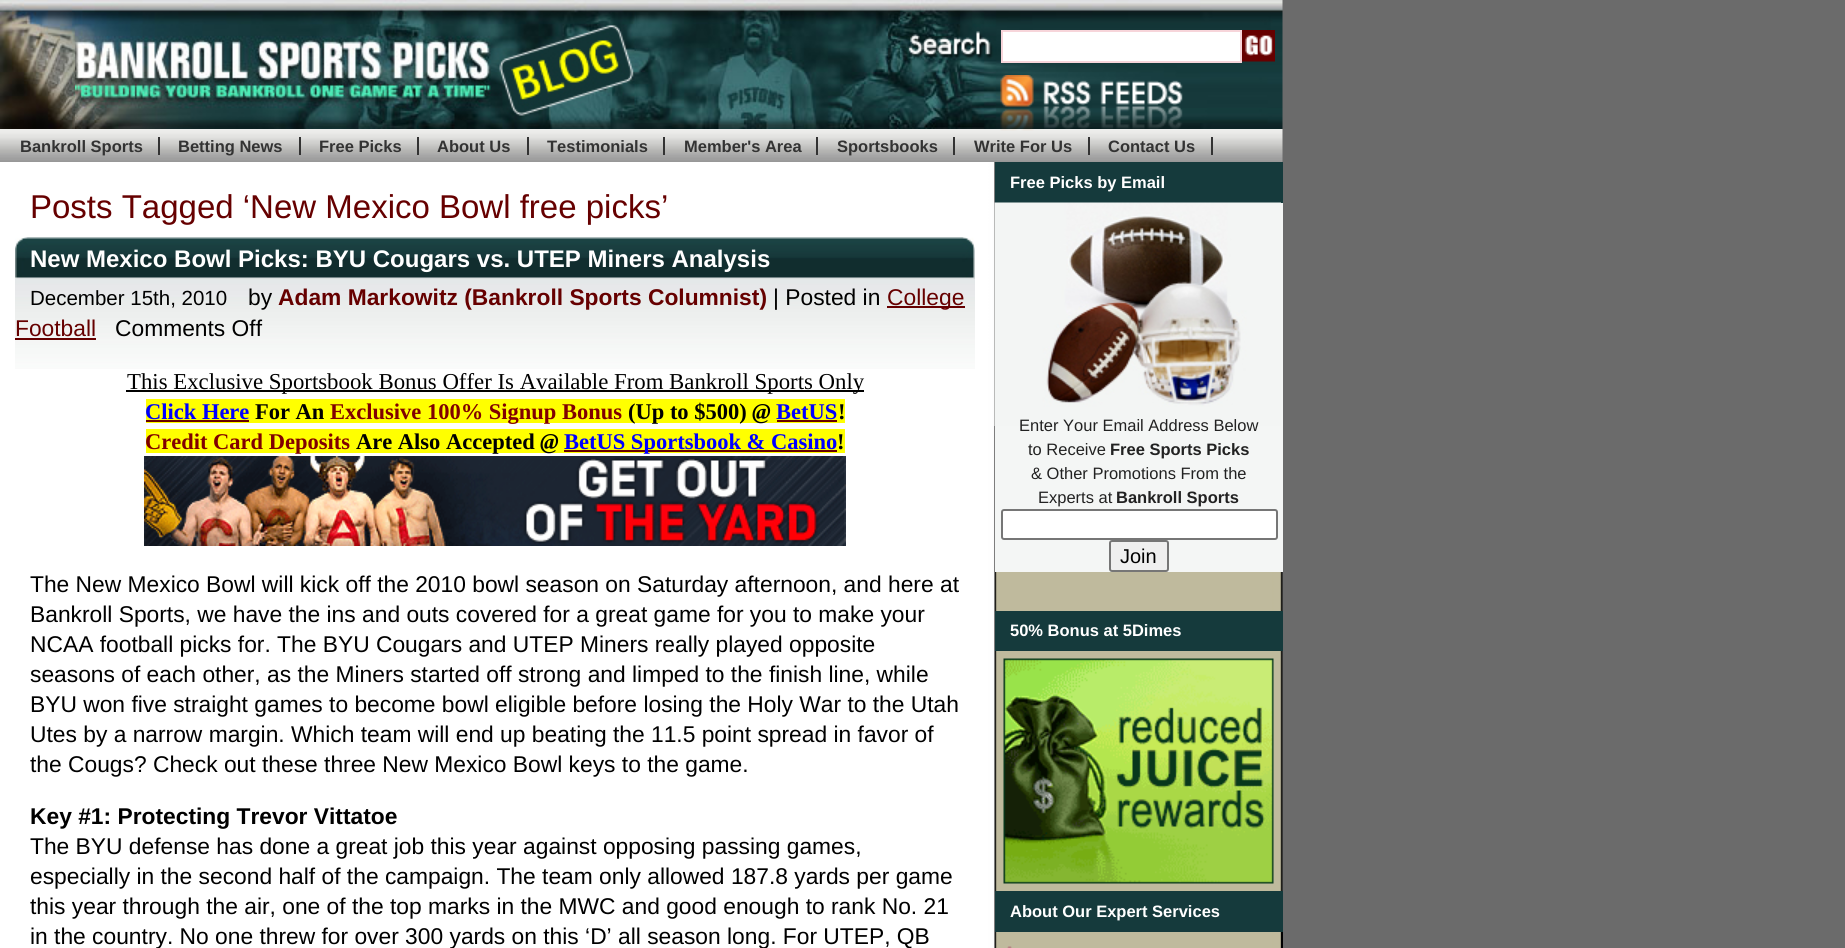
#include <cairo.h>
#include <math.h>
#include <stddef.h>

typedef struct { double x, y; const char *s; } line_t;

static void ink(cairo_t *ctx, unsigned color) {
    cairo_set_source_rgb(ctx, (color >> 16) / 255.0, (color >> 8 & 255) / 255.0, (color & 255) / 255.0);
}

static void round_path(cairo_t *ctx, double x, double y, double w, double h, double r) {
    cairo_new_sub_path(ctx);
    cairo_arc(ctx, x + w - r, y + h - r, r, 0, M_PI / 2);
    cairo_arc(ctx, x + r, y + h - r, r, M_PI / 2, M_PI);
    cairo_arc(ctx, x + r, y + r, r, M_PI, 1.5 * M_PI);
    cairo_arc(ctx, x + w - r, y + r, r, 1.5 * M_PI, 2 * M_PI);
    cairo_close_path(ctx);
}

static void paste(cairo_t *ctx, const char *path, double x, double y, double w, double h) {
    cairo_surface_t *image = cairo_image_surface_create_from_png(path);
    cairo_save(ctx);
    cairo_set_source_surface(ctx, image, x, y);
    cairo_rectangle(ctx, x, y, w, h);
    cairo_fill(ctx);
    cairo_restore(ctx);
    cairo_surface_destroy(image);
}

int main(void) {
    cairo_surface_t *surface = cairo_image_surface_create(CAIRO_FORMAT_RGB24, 1845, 948);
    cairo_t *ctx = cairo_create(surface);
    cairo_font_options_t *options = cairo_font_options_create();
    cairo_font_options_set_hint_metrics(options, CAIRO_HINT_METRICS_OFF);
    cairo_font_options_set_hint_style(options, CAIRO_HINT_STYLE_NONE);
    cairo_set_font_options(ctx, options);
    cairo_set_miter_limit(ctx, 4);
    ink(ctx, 0x6B6B6B);
    cairo_paint(ctx);
    paste(ctx, "media/1.png", 0, 0, 1283, 129);
    paste(ctx, "media/2.png", 75, 0, 561, 129);
    ink(ctx, 0xFFFFFF);
    cairo_rectangle(ctx, 1002, 31, 239, 31);
    cairo_fill_preserve(ctx);
    ink(ctx, 0xF7D5DA);
    cairo_stroke(ctx);
    paste(ctx, "media/3.png", 1242, 30, 33, 32);
    paste(ctx, "media/5.png", 0, 129, 1283, 33);
    paste(ctx, "media/4.png", 1000, 75, 183, 56);
    cairo_select_font_face(ctx, "Liberation Sans", CAIRO_FONT_SLANT_NORMAL, CAIRO_FONT_WEIGHT_BOLD);
    cairo_set_font_size(ctx, 16.5);
    ink(ctx, 0x333333);
    cairo_move_to(ctx, 20, 152);
    cairo_show_text(ctx, "Bankroll Sports");
    cairo_rectangle(ctx, 158, 137, 2, 18);
    cairo_fill(ctx);
    cairo_move_to(ctx, 178, 152);
    cairo_show_text(ctx, "Betting News");
    cairo_rectangle(ctx, 299, 137, 2, 18);
    cairo_fill(ctx);
    cairo_move_to(ctx, 319, 152);
    cairo_show_text(ctx, "Free Picks");
    cairo_rectangle(ctx, 417, 137, 2, 18);
    cairo_fill(ctx);
    cairo_move_to(ctx, 437, 152);
    cairo_show_text(ctx, "About Us");
    cairo_rectangle(ctx, 527, 137, 2, 18);
    cairo_fill(ctx);
    cairo_move_to(ctx, 547, 152);
    cairo_show_text(ctx, "Testimonials");
    cairo_rectangle(ctx, 663, 137, 2, 18);
    cairo_fill(ctx);
    cairo_move_to(ctx, 684, 152);
    cairo_show_text(ctx, "Member's Area");
    cairo_rectangle(ctx, 816, 137, 2, 18);
    cairo_fill(ctx);
    cairo_move_to(ctx, 837, 152);
    cairo_show_text(ctx, "Sportsbooks");
    cairo_rectangle(ctx, 953, 137, 2, 18);
    cairo_fill(ctx);
    cairo_move_to(ctx, 974, 152);
    cairo_show_text(ctx, "Write For Us");
    cairo_rectangle(ctx, 1088, 137, 2, 18);
    cairo_fill(ctx);
    cairo_move_to(ctx, 1108, 152);
    cairo_show_text(ctx, "Contact Us");
    cairo_rectangle(ctx, 1211, 137, 2, 18);
    cairo_fill(ctx);
    paste(ctx, "media/6.png", 0, 162, 1283, 786);
    cairo_select_font_face(ctx, "Liberation Sans", CAIRO_FONT_SLANT_NORMAL, CAIRO_FONT_WEIGHT_NORMAL);
    cairo_set_font_size(ctx, 33);
    ink(ctx, 0x660000);
    cairo_move_to(ctx, 30, 218);
    cairo_show_text(ctx, "Posts Tagged ‘New Mexico Bowl free picks’");
    paste(ctx, "media/7.png", 15, 279, 960, 90);
    paste(ctx, "media/8.png", 15, 237, 960, 42);
    cairo_select_font_face(ctx, "Liberation Sans", CAIRO_FONT_SLANT_NORMAL, CAIRO_FONT_WEIGHT_BOLD);
    cairo_set_font_size(ctx, 24);
    ink(ctx, 0xFFFFFF);
    cairo_move_to(ctx, 30, 267);
    cairo_show_text(ctx, "New Mexico Bowl Picks: BYU Cougars vs. UTEP Miners Analysis");
    cairo_select_font_face(ctx, "Liberation Sans", CAIRO_FONT_SLANT_NORMAL, CAIRO_FONT_WEIGHT_NORMAL);
    cairo_set_font_size(ctx, 20.5);
    ink(ctx, 0x000000);
    cairo_move_to(ctx, 30, 305);
    cairo_show_text(ctx, "December 15th, 2010");
    cairo_set_font_size(ctx, 22.8);
    cairo_move_to(ctx, 248, 305);
    cairo_show_text(ctx, "by");
    cairo_select_font_face(ctx, "Liberation Sans", CAIRO_FONT_SLANT_NORMAL, CAIRO_FONT_WEIGHT_BOLD);
    ink(ctx, 0x660000);
    cairo_move_to(ctx, 278, 305);
    cairo_show_text(ctx, "Adam Markowitz (Bankroll Sports Columnist)");
    cairo_select_font_face(ctx, "Liberation Sans", CAIRO_FONT_SLANT_NORMAL, CAIRO_FONT_WEIGHT_NORMAL);
    ink(ctx, 0x000000);
    cairo_move_to(ctx, 773, 305);
    cairo_show_text(ctx, "| Posted in");
    ink(ctx, 0x660000);
    cairo_rectangle(ctx, 887, 306, 78, 2);
    cairo_fill(ctx);
    cairo_move_to(ctx, 887, 305);
    cairo_show_text(ctx, "College");
    cairo_move_to(ctx, 15, 336);
    cairo_show_text(ctx, "Football");
    cairo_rectangle(ctx, 15, 338, 81, 2);
    cairo_fill(ctx);
    ink(ctx, 0x000000);
    cairo_move_to(ctx, 115, 336);
    cairo_show_text(ctx, "Comments Off");
    cairo_rectangle(ctx, 126, 390, 738, 2);
    cairo_fill(ctx);
    cairo_select_font_face(ctx, "Liberation Serif", CAIRO_FONT_SLANT_NORMAL, CAIRO_FONT_WEIGHT_NORMAL);
    cairo_move_to(ctx, 127, 389);
    cairo_show_text(ctx, "This Exclusive Sportsbook Bonus Offer Is Available From Bankroll Sports Only");
    ink(ctx, 0xFFFF00);
    cairo_rectangle(ctx, 146, 399, 699, 24);
    cairo_fill(ctx);
    cairo_select_font_face(ctx, "Liberation Serif", CAIRO_FONT_SLANT_NORMAL, CAIRO_FONT_WEIGHT_BOLD);
    cairo_set_font_size(ctx, 22.5);
    ink(ctx, 0x0000FF);
    cairo_move_to(ctx, 145, 419);
    cairo_show_text(ctx, "Click Here");
    ink(ctx, 0x660000);
    cairo_rectangle(ctx, 146, 420, 103, 2);
    cairo_fill(ctx);
    ink(ctx, 0x000000);
    cairo_move_to(ctx, 255, 419);
    cairo_show_text(ctx, "For An");
    ink(ctx, 0x800000);
    cairo_move_to(ctx, 330, 419);
    cairo_show_text(ctx, "Exclusive 100% Signup Bonus");
    ink(ctx, 0x000000);
    cairo_move_to(ctx, 628, 419);
    cairo_show_text(ctx, "(Up to $500)");
    cairo_select_font_face(ctx, "Liberation Serif", CAIRO_FONT_SLANT_ITALIC, CAIRO_FONT_WEIGHT_BOLD);
    cairo_move_to(ctx, 752, 419);
    cairo_show_text(ctx, "@");
    cairo_select_font_face(ctx, "Liberation Serif", CAIRO_FONT_SLANT_NORMAL, CAIRO_FONT_WEIGHT_BOLD);
    ink(ctx, 0x0000FF);
    cairo_move_to(ctx, 776, 419);
    cairo_show_text(ctx, "BetUS");
    ink(ctx, 0x660000);
    cairo_rectangle(ctx, 777, 420, 60, 2);
    cairo_fill(ctx);
    ink(ctx, 0x000000);
    cairo_move_to(ctx, 838, 419);
    cairo_show_text(ctx, "!");
    ink(ctx, 0xFFFF00);
    cairo_rectangle(ctx, 146, 429, 699, 24);
    cairo_fill(ctx);
    ink(ctx, 0x800000);
    cairo_move_to(ctx, 145, 449);
    cairo_show_text(ctx, "Credit Card Deposits");
    ink(ctx, 0x000000);
    cairo_move_to(ctx, 356, 449);
    cairo_show_text(ctx, "Are Also Accepted");
    cairo_select_font_face(ctx, "Liberation Serif", CAIRO_FONT_SLANT_ITALIC, CAIRO_FONT_WEIGHT_BOLD);
    cairo_move_to(ctx, 540, 449);
    cairo_show_text(ctx, "@");
    ink(ctx, 0x660000);
    cairo_rectangle(ctx, 564, 450, 273, 2);
    cairo_fill(ctx);
    cairo_select_font_face(ctx, "Liberation Serif", CAIRO_FONT_SLANT_NORMAL, CAIRO_FONT_WEIGHT_BOLD);
    ink(ctx, 0x0000FF);
    cairo_move_to(ctx, 564, 449);
    cairo_show_text(ctx, "BetUS Sportsbook & Casino");
    ink(ctx, 0x000000);
    cairo_move_to(ctx, 837, 449);
    cairo_show_text(ctx, "!");
    paste(ctx, "media/9.png", 144, 456, 702, 90);
    cairo_select_font_face(ctx, "Liberation Sans", CAIRO_FONT_SLANT_NORMAL, CAIRO_FONT_WEIGHT_NORMAL);
    cairo_set_font_size(ctx, 22.8);
    {
        static const line_t items[] = {
            {30, 592, "The New Mexico Bowl will kick off the 2010 bowl season on Saturday afternoon, and here at"},
            {30, 622, "Bankroll Sports, we have the ins and outs covered for a great game for you to make your"},
            {30, 652, "NCAA football picks for. The BYU Cougars and UTEP Miners really played opposite"},
            {30, 682, "seasons of each other, as the Miners started off strong and limped to the finish line, while"},
            {30, 712, "BYU won five straight games to become bowl eligible before losing the Holy War to the Utah"},
            {30, 742, "Utes by a narrow margin. Which team will end up beating the 11.5 point spread in favor of"},
            {30, 772, "the Cougs? Check out these three New Mexico Bowl keys to the game."},
        };
        for (size_t i = 0; i < sizeof items / sizeof *items; i++) {
            cairo_move_to(ctx, items[i].x, items[i].y);
            cairo_show_text(ctx, items[i].s);
        }
    }
    cairo_select_font_face(ctx, "Liberation Sans", CAIRO_FONT_SLANT_NORMAL, CAIRO_FONT_WEIGHT_BOLD);
    cairo_move_to(ctx, 30, 824);
    cairo_show_text(ctx, "Key #1: Protecting Trevor Vittatoe");
    cairo_select_font_face(ctx, "Liberation Sans", CAIRO_FONT_SLANT_NORMAL, CAIRO_FONT_WEIGHT_NORMAL);
    {
        static const line_t items[] = {
            {30, 854, "The BYU defense has done a great job this year against opposing passing games,"},
            {30, 884, "especially in the second half of the campaign. The team only allowed 187.8 yards per game"},
            {30, 914, "this year through the air, one of the top marks in the MWC and good enough to rank No. 21"},
            {30, 944, "in the country. No one threw for over 300 yards on this ‘D’ all season long. For UTEP, QB"},
        };
        for (size_t i = 0; i < sizeof items / sizeof *items; i++) {
            cairo_move_to(ctx, items[i].x, items[i].y);
            cairo_show_text(ctx, items[i].s);
        }
    }
    ink(ctx, 0x153A3C);
    cairo_rectangle(ctx, 995, 162, 288, 41);
    cairo_fill(ctx);
    cairo_select_font_face(ctx, "Liberation Sans", CAIRO_FONT_SLANT_NORMAL, CAIRO_FONT_WEIGHT_BOLD);
    cairo_set_font_size(ctx, 16.5);
    ink(ctx, 0xFFFFFF);
    cairo_move_to(ctx, 1010, 188);
    cairo_show_text(ctx, "Free Picks by Email");
    ink(ctx, 0xF4F6F5);
    cairo_rectangle(ctx, 995, 203, 288, 369);
    cairo_fill(ctx);
    paste(ctx, "media/10.png", 994, 202, 287, 224);
    cairo_select_font_face(ctx, "Liberation Sans", CAIRO_FONT_SLANT_NORMAL, CAIRO_FONT_WEIGHT_NORMAL);
    ink(ctx, 0x222222);
    cairo_move_to(ctx, 1019, 431);
    cairo_show_text(ctx, "Enter Your Email Address Below");
    cairo_move_to(ctx, 1028, 455);
    cairo_show_text(ctx, "to Receive");
    cairo_select_font_face(ctx, "Liberation Sans", CAIRO_FONT_SLANT_NORMAL, CAIRO_FONT_WEIGHT_BOLD);
    cairo_move_to(ctx, 1110, 455);
    cairo_show_text(ctx, "Free Sports Picks");
    cairo_select_font_face(ctx, "Liberation Sans", CAIRO_FONT_SLANT_NORMAL, CAIRO_FONT_WEIGHT_NORMAL);
    cairo_move_to(ctx, 1031, 479);
    cairo_show_text(ctx, "& Other Promotions From the");
    cairo_move_to(ctx, 1038, 503);
    cairo_show_text(ctx, "Experts at");
    cairo_select_font_face(ctx, "Liberation Sans", CAIRO_FONT_SLANT_NORMAL, CAIRO_FONT_WEIGHT_BOLD);
    cairo_move_to(ctx, 1116, 503);
    cairo_show_text(ctx, "Bankroll Sports");
    ink(ctx, 0xFFFFFF);
    round_path(ctx, 1002, 510, 275, 29, 2);
    cairo_fill_preserve(ctx);
    ink(ctx, 0x767676);
    cairo_stroke(ctx);
    ink(ctx, 0xEFEFEF);
    round_path(ctx, 1110, 541, 58, 30, 2);
    cairo_fill_preserve(ctx);
    ink(ctx, 0x767676);
    cairo_stroke(ctx);
    cairo_select_font_face(ctx, "Liberation Sans", CAIRO_FONT_SLANT_NORMAL, CAIRO_FONT_WEIGHT_NORMAL);
    cairo_set_font_size(ctx, 20);
    ink(ctx, 0x000000);
    cairo_move_to(ctx, 1120, 563);
    cairo_show_text(ctx, "Join");
    ink(ctx, 0x153A3C);
    cairo_rectangle(ctx, 995, 611, 288, 40);
    cairo_fill(ctx);
    cairo_select_font_face(ctx, "Liberation Sans", CAIRO_FONT_SLANT_NORMAL, CAIRO_FONT_WEIGHT_BOLD);
    cairo_set_font_size(ctx, 16.5);
    ink(ctx, 0xFFFFFF);
    cairo_move_to(ctx, 1010, 636);
    cairo_show_text(ctx, "50% Bonus at 5Dimes");
    paste(ctx, "media/11.png", 1003, 658, 271, 226);
    ink(ctx, 0x153A3C);
    cairo_rectangle(ctx, 995, 891, 288, 41);
    cairo_fill(ctx);
    ink(ctx, 0xFFFFFF);
    cairo_move_to(ctx, 1010, 917);
    cairo_show_text(ctx, "About Our Expert Services");
    ink(ctx, 0x000000);
    cairo_rectangle(ctx, 1281, 932, 2, 16);
    cairo_fill(ctx);
    paste(ctx, "media/12.png", 1007, 946, 5, 2);
    cairo_surface_write_to_png(surface, "image.png");
    cairo_font_options_destroy(options);
    cairo_destroy(ctx);
    cairo_surface_destroy(surface);
    return 0;
}
